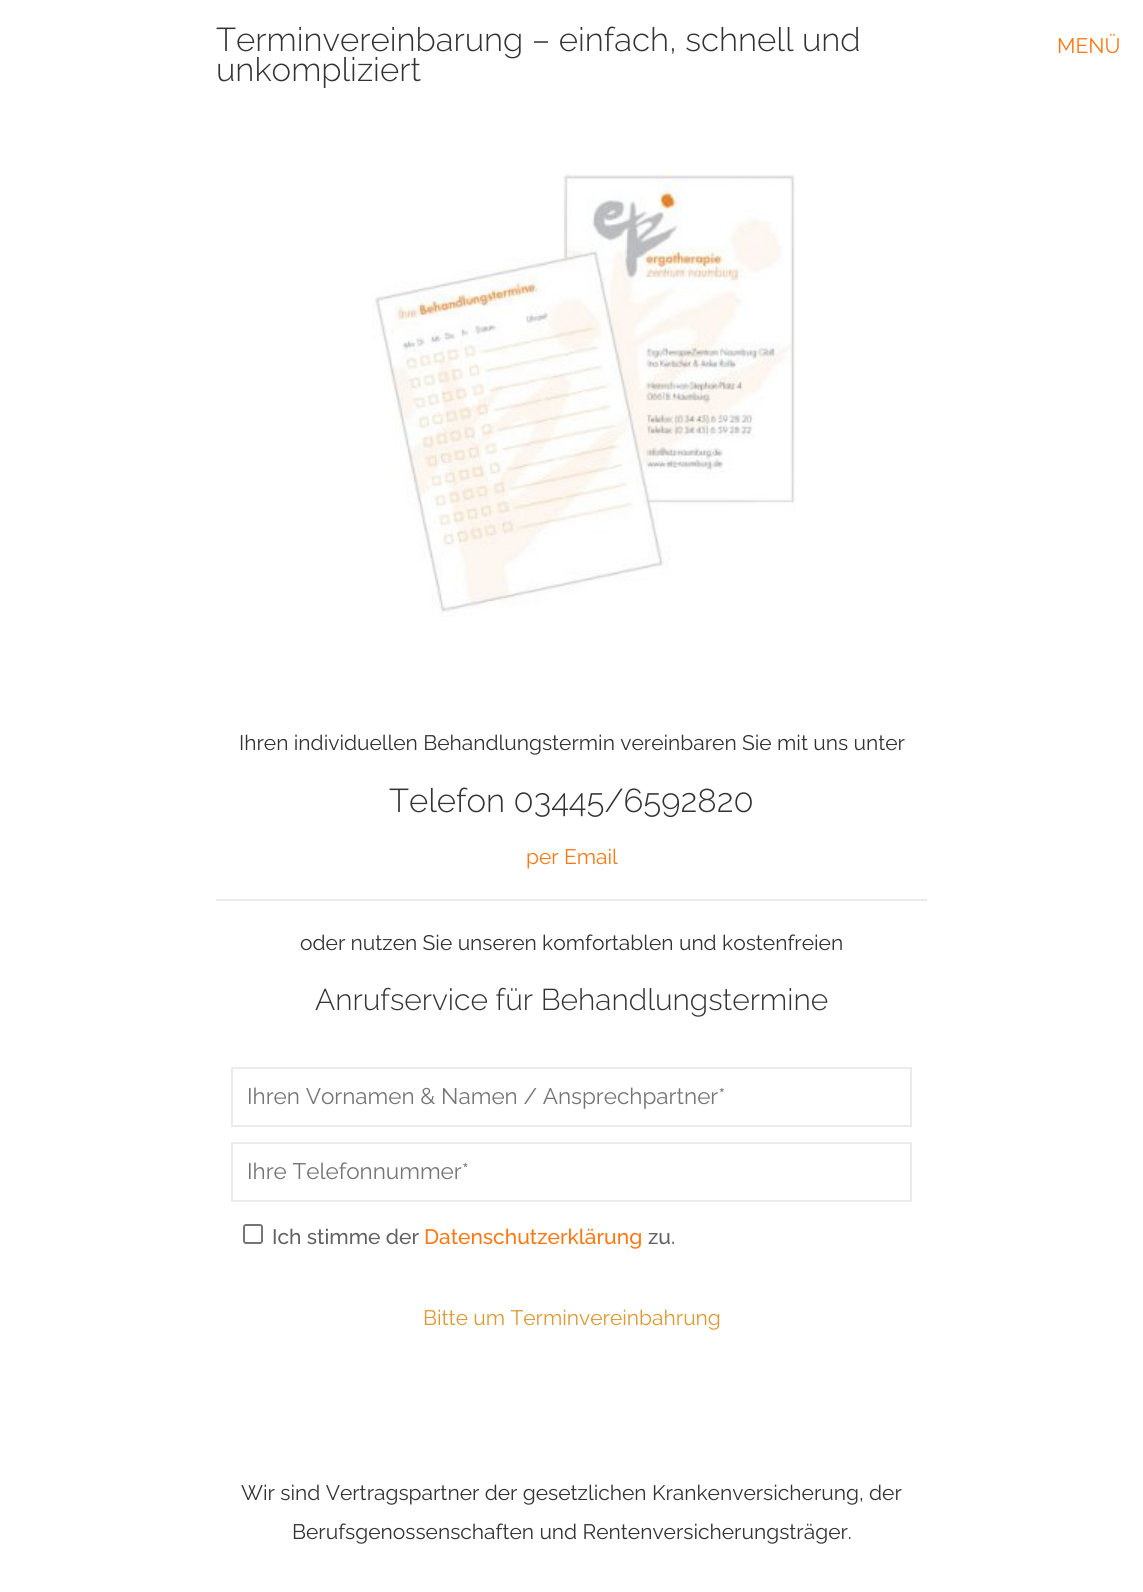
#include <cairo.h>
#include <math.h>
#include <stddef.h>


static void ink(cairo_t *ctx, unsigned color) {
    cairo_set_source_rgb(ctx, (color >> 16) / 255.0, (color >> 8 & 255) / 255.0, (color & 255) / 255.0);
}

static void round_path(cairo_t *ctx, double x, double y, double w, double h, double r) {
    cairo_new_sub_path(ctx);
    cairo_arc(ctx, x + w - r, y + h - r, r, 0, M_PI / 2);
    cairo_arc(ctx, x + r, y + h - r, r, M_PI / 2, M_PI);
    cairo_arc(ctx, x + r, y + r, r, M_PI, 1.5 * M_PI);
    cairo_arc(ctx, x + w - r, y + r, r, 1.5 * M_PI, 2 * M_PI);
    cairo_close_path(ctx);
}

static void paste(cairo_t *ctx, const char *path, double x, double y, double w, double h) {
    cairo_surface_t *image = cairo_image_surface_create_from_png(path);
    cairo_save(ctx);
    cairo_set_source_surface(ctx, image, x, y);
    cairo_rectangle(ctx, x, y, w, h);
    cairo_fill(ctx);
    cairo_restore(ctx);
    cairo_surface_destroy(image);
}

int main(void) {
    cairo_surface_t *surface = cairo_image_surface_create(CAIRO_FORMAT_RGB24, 1143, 1592);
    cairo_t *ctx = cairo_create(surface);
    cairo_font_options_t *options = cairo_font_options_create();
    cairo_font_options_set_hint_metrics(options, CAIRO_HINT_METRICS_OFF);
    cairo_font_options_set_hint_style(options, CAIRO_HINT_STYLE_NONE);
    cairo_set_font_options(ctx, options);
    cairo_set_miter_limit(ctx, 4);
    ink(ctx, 0xFFFFFF);
    cairo_paint(ctx);
    cairo_select_font_face(ctx, "Raleway Light", CAIRO_FONT_SLANT_NORMAL, CAIRO_FONT_WEIGHT_NORMAL);
    cairo_set_font_size(ctx, 33);
    ink(ctx, 0x333333);
    cairo_move_to(ctx, 216, 51);
    cairo_show_text(ctx, "Terminvereinbarung – einfach, schnell und");
    cairo_move_to(ctx, 216, 81);
    cairo_show_text(ctx, "unkompliziert");
    paste(ctx, "media/1.png", 372, 173, 424, 444);
    cairo_select_font_face(ctx, "Raleway", CAIRO_FONT_SLANT_NORMAL, CAIRO_FONT_WEIGHT_NORMAL);
    cairo_set_font_size(ctx, 21);
    cairo_move_to(ctx, 239, 750);
    cairo_show_text(ctx, "Ihren individuellen Behandlungstermin vereinbaren Sie mit uns unter");
    cairo_select_font_face(ctx, "Raleway Light", CAIRO_FONT_SLANT_NORMAL, CAIRO_FONT_WEIGHT_NORMAL);
    cairo_set_font_size(ctx, 33);
    cairo_move_to(ctx, 389, 812);
    cairo_show_text(ctx, "Telefon 03445/6592820");
    cairo_select_font_face(ctx, "Raleway", CAIRO_FONT_SLANT_NORMAL, CAIRO_FONT_WEIGHT_NORMAL);
    cairo_set_font_size(ctx, 21);
    ink(ctx, 0xFF7713);
    cairo_move_to(ctx, 526, 864);
    cairo_show_text(ctx, "per Email");
    ink(ctx, 0xEBEBEB);
    cairo_rectangle(ctx, 216, 899, 711, 2);
    cairo_fill(ctx);
    ink(ctx, 0x333333);
    cairo_move_to(ctx, 300, 950);
    cairo_show_text(ctx, "oder nutzen Sie unseren komfortablen und kostenfreien");
    cairo_select_font_face(ctx, "Raleway Light", CAIRO_FONT_SLANT_NORMAL, CAIRO_FONT_WEIGHT_NORMAL);
    cairo_set_font_size(ctx, 30);
    cairo_move_to(ctx, 315, 1010);
    cairo_show_text(ctx, "Anrufservice für Behandlungstermine");
    cairo_rectangle(ctx, 232, 1068, 679, 58);
    ink(ctx, 0xEBEBEB);
    cairo_stroke(ctx);
    cairo_select_font_face(ctx, "Raleway", CAIRO_FONT_SLANT_NORMAL, CAIRO_FONT_WEIGHT_NORMAL);
    cairo_set_font_size(ctx, 22.5);
    ink(ctx, 0x757575);
    cairo_move_to(ctx, 247, 1104);
    cairo_show_text(ctx, "Ihren Vornamen & Namen / Ansprechpartner*");
    cairo_rectangle(ctx, 232, 1143, 679, 58);
    ink(ctx, 0xEBEBEB);
    cairo_stroke(ctx);
    ink(ctx, 0x757575);
    cairo_move_to(ctx, 247, 1179);
    cairo_show_text(ctx, "Ihre Telefonnummer*");
    round_path(ctx, 244, 1225, 18, 18, 2);
    ink(ctx, 0x767676);
    cairo_stroke(ctx);
    cairo_select_font_face(ctx, "Raleway Medium", CAIRO_FONT_SLANT_NORMAL, CAIRO_FONT_WEIGHT_NORMAL);
    cairo_set_font_size(ctx, 21);
    ink(ctx, 0x626262);
    cairo_move_to(ctx, 272, 1244);
    cairo_show_text(ctx, "Ich stimme der");
    ink(ctx, 0xFF7713);
    cairo_move_to(ctx, 424, 1244);
    cairo_show_text(ctx, "Datenschutzerklärung");
    ink(ctx, 0x626262);
    cairo_move_to(ctx, 648, 1244);
    cairo_show_text(ctx, "zu.");
    cairo_select_font_face(ctx, "Raleway", CAIRO_FONT_SLANT_NORMAL, CAIRO_FONT_WEIGHT_NORMAL);
    ink(ctx, 0xDD9933);
    cairo_move_to(ctx, 423, 1325);
    cairo_show_text(ctx, "Bitte um Terminvereinbahrung");
    ink(ctx, 0x333333);
    cairo_move_to(ctx, 241, 1500);
    cairo_show_text(ctx, "Wir sind Vertragspartner der gesetzlichen Krankenversicherung, der");
    cairo_move_to(ctx, 292, 1539);
    cairo_show_text(ctx, "Berufsgenossenschaften und Rentenversicherungsträger.");
    ink(ctx, 0xFF7713);
    cairo_move_to(ctx, 1057, 53);
    cairo_show_text(ctx, "MENÜ");
    cairo_surface_write_to_png(surface, "image.png");
    cairo_font_options_destroy(options);
    cairo_destroy(ctx);
    cairo_surface_destroy(surface);
    return 0;
}
